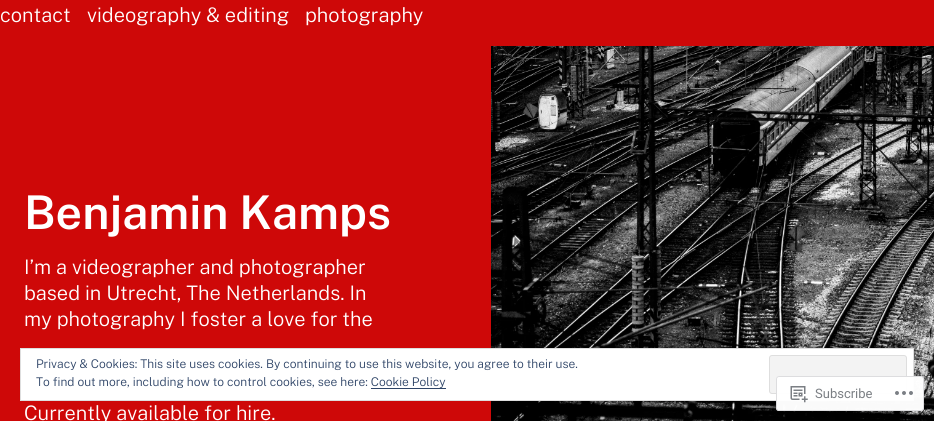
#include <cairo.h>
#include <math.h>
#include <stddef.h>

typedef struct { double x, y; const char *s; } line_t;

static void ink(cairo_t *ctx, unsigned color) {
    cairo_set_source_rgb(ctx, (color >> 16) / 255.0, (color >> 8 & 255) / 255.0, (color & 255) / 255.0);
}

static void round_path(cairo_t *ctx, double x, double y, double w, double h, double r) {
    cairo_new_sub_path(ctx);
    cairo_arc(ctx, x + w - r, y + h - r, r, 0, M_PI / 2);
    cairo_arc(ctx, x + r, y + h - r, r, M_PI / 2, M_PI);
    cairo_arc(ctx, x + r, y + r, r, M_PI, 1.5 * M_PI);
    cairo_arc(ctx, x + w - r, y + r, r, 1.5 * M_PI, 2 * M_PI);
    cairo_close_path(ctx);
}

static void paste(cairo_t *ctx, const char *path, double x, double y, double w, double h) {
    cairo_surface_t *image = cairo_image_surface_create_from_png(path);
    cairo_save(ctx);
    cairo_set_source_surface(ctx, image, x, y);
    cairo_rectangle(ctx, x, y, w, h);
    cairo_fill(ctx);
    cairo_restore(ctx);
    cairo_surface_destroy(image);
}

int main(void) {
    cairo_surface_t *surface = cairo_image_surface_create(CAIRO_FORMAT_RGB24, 934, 421);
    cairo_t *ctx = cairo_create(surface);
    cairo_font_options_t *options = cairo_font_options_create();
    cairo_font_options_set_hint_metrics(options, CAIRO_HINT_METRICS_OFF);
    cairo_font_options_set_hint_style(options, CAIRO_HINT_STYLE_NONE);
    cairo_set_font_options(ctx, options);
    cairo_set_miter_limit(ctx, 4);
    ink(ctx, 0xCE0808);
    cairo_paint(ctx);
    cairo_select_font_face(ctx, "Public Sans Light", CAIRO_FONT_SLANT_NORMAL, CAIRO_FONT_WEIGHT_NORMAL);
    cairo_set_font_size(ctx, 20);
    ink(ctx, 0xFFFFFF);
    {
        static const line_t items[] = {
            {0, 22, "contact"},
            {87, 22, "videography & editing"},
            {305, 22, "photography"},
        };
        for (size_t i = 0; i < sizeof items / sizeof *items; i++) {
            cairo_move_to(ctx, items[i].x, items[i].y);
            cairo_show_text(ctx, items[i].s);
        }
    }
    cairo_select_font_face(ctx, "Public Sans SemiBold", CAIRO_FONT_SLANT_NORMAL, CAIRO_FONT_WEIGHT_NORMAL);
    cairo_set_font_size(ctx, 46.5);
    cairo_move_to(ctx, 24, 229);
    cairo_show_text(ctx, "Benjamin Kamps");
    cairo_select_font_face(ctx, "Public Sans Light", CAIRO_FONT_SLANT_NORMAL, CAIRO_FONT_WEIGHT_NORMAL);
    cairo_set_font_size(ctx, 20);
    {
        static const line_t items[] = {
            {24, 274, "I’m a videographer and photographer"},
            {24, 300, "based in Utrecht, The Netherlands. In"},
            {24, 326, "my photography I foster a love for the"},
            {24, 420, "Currently available for hire."},
        };
        for (size_t i = 0; i < sizeof items / sizeof *items; i++) {
            cairo_move_to(ctx, items[i].x, items[i].y);
            cairo_show_text(ctx, items[i].s);
        }
    }
    paste(ctx, "media/1.png", 491, 46, 443, 375);
    cairo_rectangle(ctx, 20.5, 348.5, 893, 52);
    cairo_fill_preserve(ctx);
    ink(ctx, 0xDEDEDE);
    cairo_set_line_width(ctx, 1);
    cairo_stroke(ctx);
    cairo_set_font_size(ctx, 12);
    ink(ctx, 0x2E4467);
    cairo_move_to(ctx, 36, 368);
    cairo_show_text(ctx, "Privacy & Cookies: This site uses cookies. By continuing to use this website, you agree to their use.");
    ink(ctx, 0xF3F3F3);
    round_path(ctx, 769.5, 355.5, 137, 38, 2.5);
    cairo_fill_preserve(ctx);
    ink(ctx, 0xDEDEDE);
    cairo_stroke(ctx);
    ink(ctx, 0x2E4467);
    cairo_move_to(ctx, 36, 386);
    cairo_show_text(ctx, "To find out more, including how to control cookies, see here: Cookie Policy");
    cairo_rectangle(ctx, 371, 388, 75, 1);
    cairo_fill(ctx);
    cairo_set_source_rgba(ctx, 1, 1, 1, 0.98);
    round_path(ctx, 776, 376, 148, 35, 3);
    cairo_fill(ctx);
    round_path(ctx, 776.5, 376.5, 147, 34, 2.5);
    cairo_set_source_rgba(ctx, 0.863, 0.863, 0.871, 0.98);
    cairo_stroke(ctx);
    paste(ctx, "media/2.png", 790, 386, 18, 17);
    cairo_select_font_face(ctx, "Roboto", CAIRO_FONT_SLANT_NORMAL, CAIRO_FONT_WEIGHT_NORMAL);
    cairo_set_font_size(ctx, 13);
    ink(ctx, 0x7B7F84);
    cairo_move_to(ctx, 815, 398);
    cairo_show_text(ctx, "Subscribe");
    paste(ctx, "media/3.png", 895, 391, 18, 4);
    cairo_surface_write_to_png(surface, "image.png");
    cairo_font_options_destroy(options);
    cairo_destroy(ctx);
    cairo_surface_destroy(surface);
    return 0;
}
